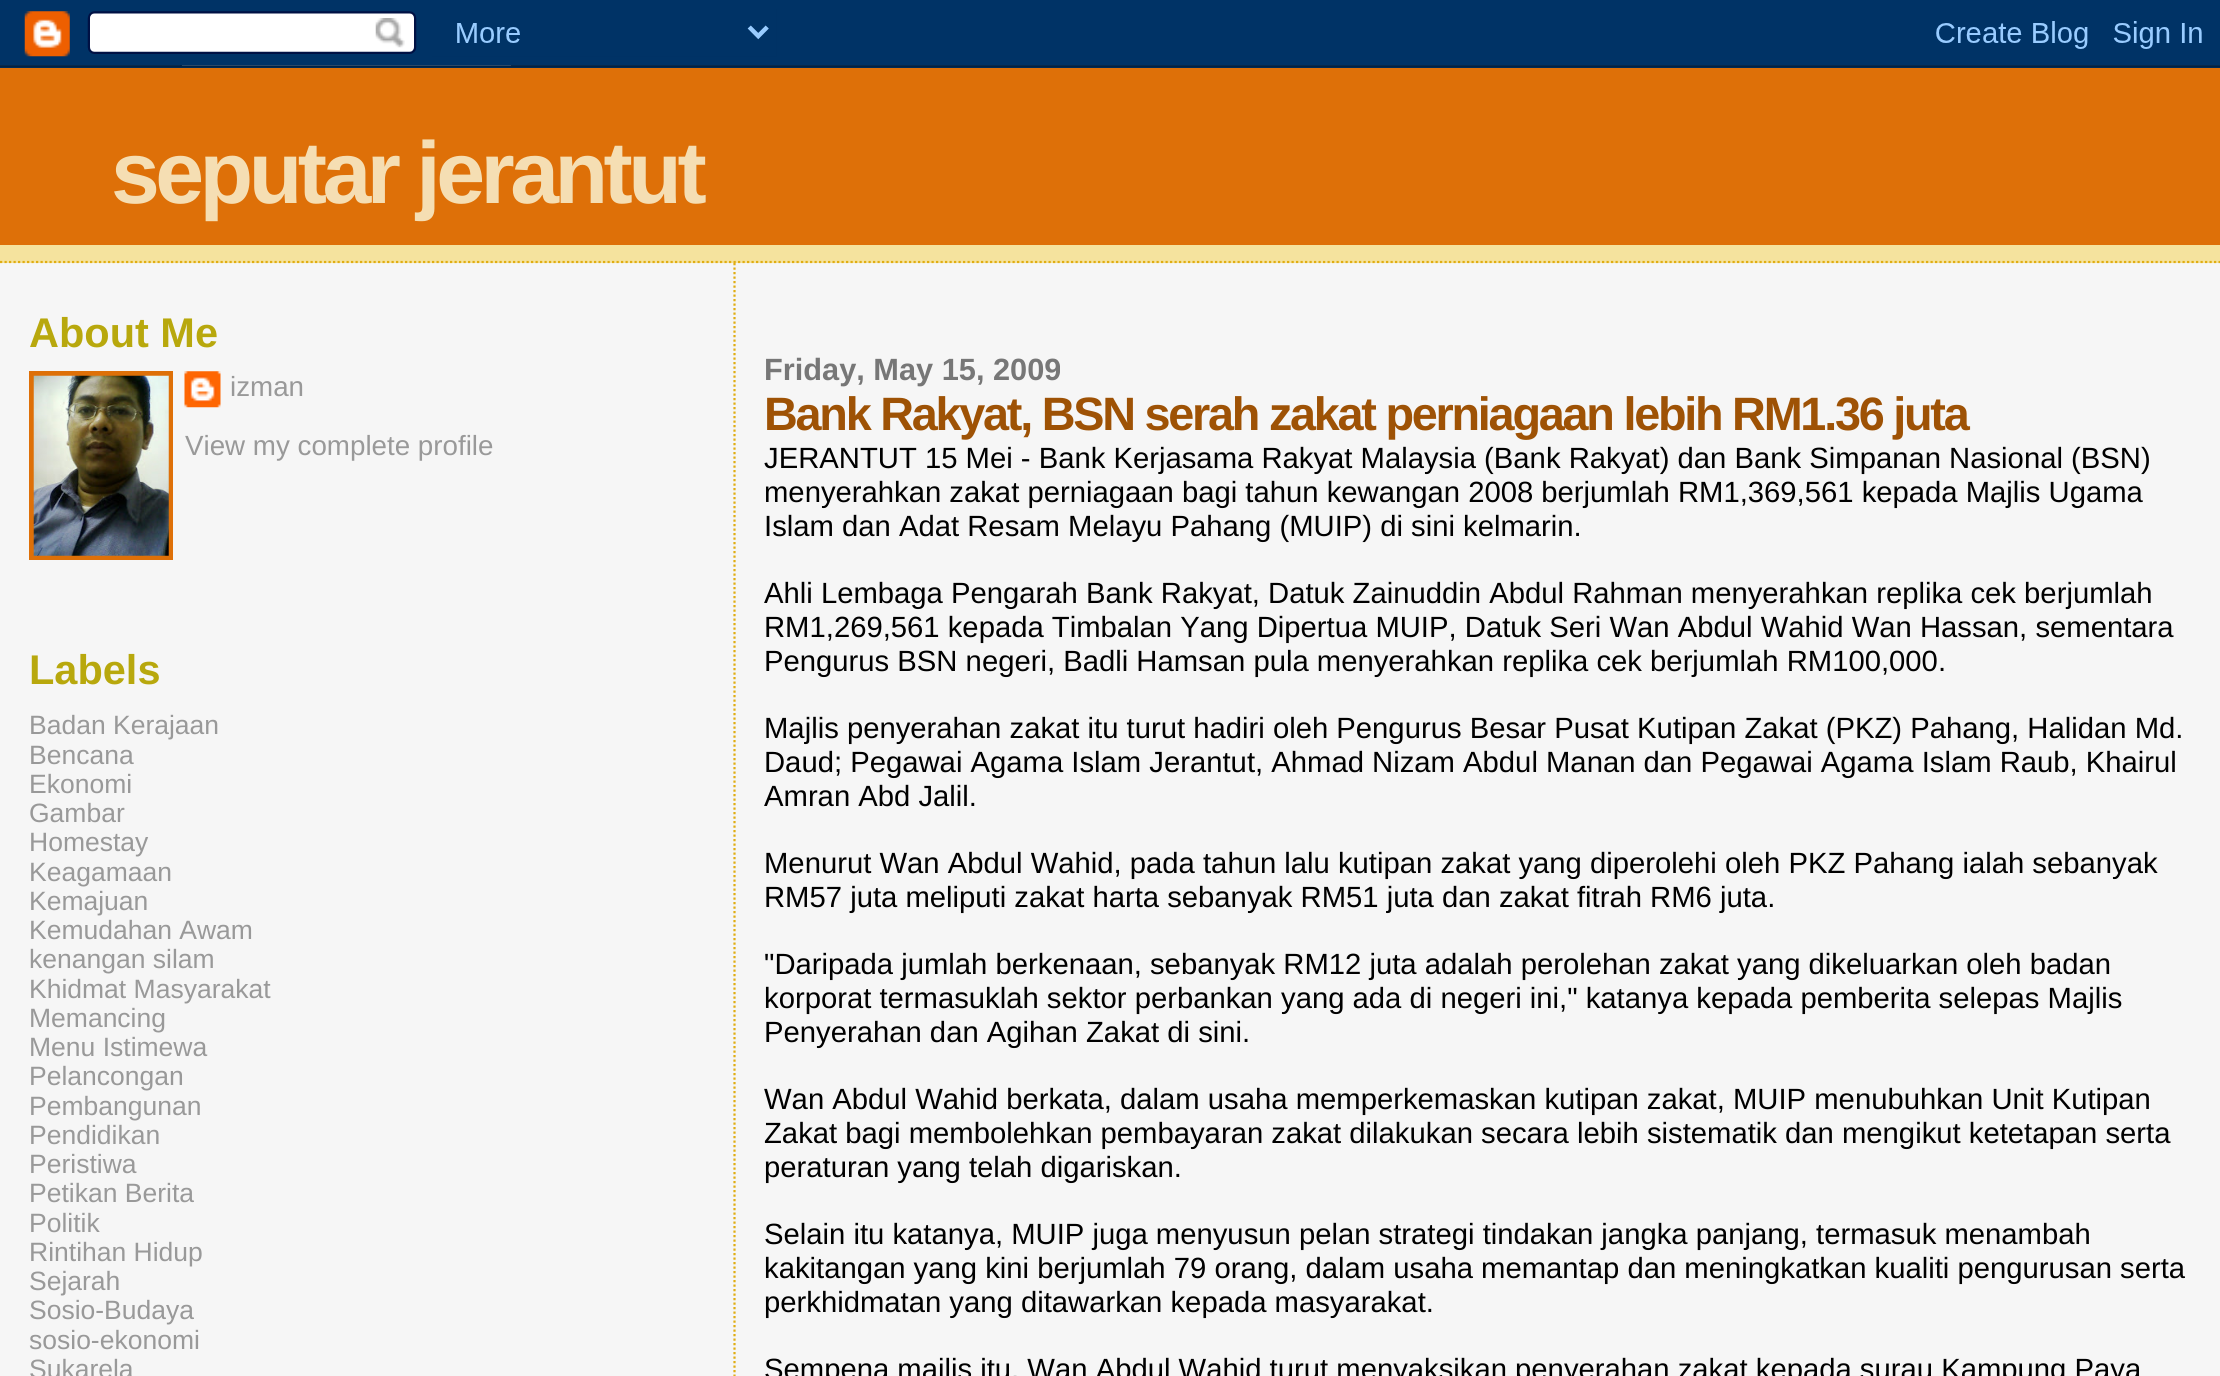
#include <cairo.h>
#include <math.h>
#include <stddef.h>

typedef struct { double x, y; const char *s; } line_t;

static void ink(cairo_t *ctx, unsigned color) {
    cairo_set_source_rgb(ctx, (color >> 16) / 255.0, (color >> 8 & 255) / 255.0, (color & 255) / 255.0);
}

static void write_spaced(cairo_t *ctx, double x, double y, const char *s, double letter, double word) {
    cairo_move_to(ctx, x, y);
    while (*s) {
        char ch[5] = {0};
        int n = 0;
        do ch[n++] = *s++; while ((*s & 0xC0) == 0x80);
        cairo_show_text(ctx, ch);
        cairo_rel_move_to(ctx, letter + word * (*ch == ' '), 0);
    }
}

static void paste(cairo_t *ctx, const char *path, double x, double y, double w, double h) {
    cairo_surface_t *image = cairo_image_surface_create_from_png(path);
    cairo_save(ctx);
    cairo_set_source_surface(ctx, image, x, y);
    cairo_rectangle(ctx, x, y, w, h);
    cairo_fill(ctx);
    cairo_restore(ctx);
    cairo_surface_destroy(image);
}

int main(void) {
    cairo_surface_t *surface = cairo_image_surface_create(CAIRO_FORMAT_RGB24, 2220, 1376);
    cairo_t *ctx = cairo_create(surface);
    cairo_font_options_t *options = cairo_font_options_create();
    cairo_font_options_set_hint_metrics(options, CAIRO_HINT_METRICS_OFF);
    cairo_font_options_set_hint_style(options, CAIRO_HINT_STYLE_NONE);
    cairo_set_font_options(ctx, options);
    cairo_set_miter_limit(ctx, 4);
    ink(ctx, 0xF6F6F6);
    cairo_paint(ctx);
    paste(ctx, "media/1.png", 0, 0, 2220, 68);
    ink(ctx, 0xF5E39E);
    cairo_rectangle(ctx, 0, 245, 2220, 18);
    cairo_fill(ctx);
    cairo_new_path(ctx);
    cairo_move_to(ctx, 0, 262);
    cairo_line_to(ctx, 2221, 262);
    ink(ctx, 0xE0AD12);
    cairo_set_line_width(ctx, 2.2);
    cairo_set_dash(ctx, (double[]){2.25, 2.25}, 2, 0);
    cairo_stroke(ctx);
    ink(ctx, 0xDE7008);
    cairo_rectangle(ctx, 0, 68, 2220, 177);
    cairo_fill(ctx);
    cairo_select_font_face(ctx, "Liberation Sans", CAIRO_FONT_SLANT_NORMAL, CAIRO_FONT_WEIGHT_BOLD);
    cairo_set_font_size(ctx, 87.75);
    ink(ctx, 0xF5DEB3);
    write_spaced(ctx, 111, 203, "seputar jerantut", -4.5, 0);
    cairo_set_font_size(ctx, 41.5);
    ink(ctx, 0xB8A80D);
    cairo_move_to(ctx, 29, 347);
    cairo_show_text(ctx, "About Me");
    cairo_rectangle(ctx, 31.5, 373.5, 139, 184);
    ink(ctx, 0xDE7008);
    cairo_set_line_width(ctx, 5);
    cairo_set_dash(ctx, NULL, 0, 0);
    cairo_stroke(ctx);
    paste(ctx, "media/2.png", 33, 375, 136, 181);
    paste(ctx, "media/3.png", 184, 371, 37, 37);
    cairo_select_font_face(ctx, "Liberation Sans", CAIRO_FONT_SLANT_NORMAL, CAIRO_FONT_WEIGHT_NORMAL);
    cairo_set_font_size(ctx, 27.75);
    ink(ctx, 0x999999);
    cairo_move_to(ctx, 230, 396);
    cairo_show_text(ctx, "izman");
    cairo_move_to(ctx, 185, 455);
    cairo_show_text(ctx, "View my complete profile");
    cairo_select_font_face(ctx, "Liberation Sans", CAIRO_FONT_SLANT_NORMAL, CAIRO_FONT_WEIGHT_BOLD);
    cairo_set_font_size(ctx, 41.5);
    ink(ctx, 0xB8A80D);
    cairo_move_to(ctx, 29, 684);
    cairo_show_text(ctx, "Labels");
    cairo_select_font_face(ctx, "Liberation Sans", CAIRO_FONT_SLANT_NORMAL, CAIRO_FONT_WEIGHT_NORMAL);
    cairo_set_font_size(ctx, 26.5);
    ink(ctx, 0x999999);
    {
        static const line_t items[] = {
            {29, 734, "Badan Kerajaan"},
            {29, 764, "Bencana"},
            {29, 793, "Ekonomi"},
            {29, 822, "Gambar"},
            {29, 851, "Homestay"},
            {29, 881, "Keagamaan"},
            {29, 910, "Kemajuan"},
            {29, 939, "Kemudahan Awam"},
            {29, 968, "kenangan silam"},
            {29, 998, "Khidmat Masyarakat"},
            {29, 1027, "Memancing"},
            {29, 1056, "Menu Istimewa"},
            {29, 1085, "Pelancongan"},
            {29, 1115, "Pembangunan"},
            {29, 1144, "Pendidikan"},
            {29, 1173, "Peristiwa"},
            {29, 1202, "Petikan Berita"},
            {29, 1232, "Politik"},
            {29, 1261, "Rintihan Hidup"},
            {29, 1290, "Sejarah"},
            {29, 1319, "Sosio-Budaya"},
            {29, 1349, "sosio-ekonomi"},
            {29, 1378, "Sukarela"},
        };
        for (size_t i = 0; i < sizeof items / sizeof *items; i++) {
            cairo_move_to(ctx, items[i].x, items[i].y);
            cairo_show_text(ctx, items[i].s);
        }
    }
    cairo_new_path(ctx);
    cairo_move_to(ctx, 734.5, 263);
    cairo_line_to(ctx, 734.5, 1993.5);
    ink(ctx, 0xE0AD12);
    cairo_set_line_width(ctx, 2.2);
    cairo_set_dash(ctx, (double[]){2.25, 2.25}, 2, 0);
    cairo_stroke(ctx);
    cairo_select_font_face(ctx, "Liberation Sans", CAIRO_FONT_SLANT_NORMAL, CAIRO_FONT_WEIGHT_BOLD);
    cairo_set_font_size(ctx, 30.75);
    ink(ctx, 0x777777);
    cairo_move_to(ctx, 764, 380);
    cairo_show_text(ctx, "Friday, May 15, 2009");
    cairo_set_font_size(ctx, 46.8);
    ink(ctx, 0x9E5205);
    write_spaced(ctx, 764, 430, "Bank Rakyat, BSN serah zakat perniagaan lebih RM1.36 juta", -2.25, 0);
    cairo_select_font_face(ctx, "Liberation Sans", CAIRO_FONT_SLANT_NORMAL, CAIRO_FONT_WEIGHT_NORMAL);
    cairo_set_font_size(ctx, 29.25);
    ink(ctx, 0x000000);
    {
        static const line_t items[] = {
            {764, 468, "JERANTUT 15 Mei - Bank Kerjasama Rakyat Malaysia (Bank Rakyat) dan Bank Simpanan Nasional (BSN)"},
            {764, 502, "menyerahkan zakat perniagaan bagi tahun kewangan 2008 berjumlah RM1,369,561 kepada Majlis Ugama"},
            {764, 536, "Islam dan Adat Resam Melayu Pahang (MUIP) di sini kelmarin."},
            {764, 603, "Ahli Lembaga Pengarah Bank Rakyat, Datuk Zainuddin Abdul Rahman menyerahkan replika cek berjumlah"},
            {764, 637, "RM1,269,561 kepada Timbalan Yang Dipertua MUIP, Datuk Seri Wan Abdul Wahid Wan Hassan, sementara"},
            {764, 671, "Pengurus BSN negeri, Badli Hamsan pula menyerahkan replika cek berjumlah RM100,000."},
            {764, 738, "Majlis penyerahan zakat itu turut hadiri oleh Pengurus Besar Pusat Kutipan Zakat (PKZ) Pahang, Halidan Md."},
            {764, 772, "Daud; Pegawai Agama Islam Jerantut, Ahmad Nizam Abdul Manan dan Pegawai Agama Islam Raub, Khairul"},
            {764, 806, "Amran Abd Jalil."},
            {764, 873, "Menurut Wan Abdul Wahid, pada tahun lalu kutipan zakat yang diperolehi oleh PKZ Pahang ialah sebanyak"},
            {764, 907, "RM57 juta meliputi zakat harta sebanyak RM51 juta dan zakat fitrah RM6 juta."},
            {764, 974, "\"Daripada jumlah berkenaan, sebanyak RM12 juta adalah perolehan zakat yang dikeluarkan oleh badan"},
            {764, 1008, "korporat termasuklah sektor perbankan yang ada di negeri ini,\" katanya kepada pemberita selepas Majlis"},
            {764, 1042, "Penyerahan dan Agihan Zakat di sini."},
            {764, 1109, "Wan Abdul Wahid berkata, dalam usaha memperkemaskan kutipan zakat, MUIP menubuhkan Unit Kutipan"},
            {764, 1143, "Zakat bagi membolehkan pembayaran zakat dilakukan secara lebih sistematik dan mengikut ketetapan serta"},
            {764, 1177, "peraturan yang telah digariskan."},
            {764, 1244, "Selain itu katanya, MUIP juga menyusun pelan strategi tindakan jangka panjang, termasuk menambah"},
            {764, 1278, "kakitangan yang kini berjumlah 79 orang, dalam usaha memantap dan meningkatkan kualiti pengurusan serta"},
            {764, 1312, "perkhidmatan yang ditawarkan kepada masyarakat."},
            {764, 1379, "Sempena majlis itu, Wan Abdul Wahid turut menyaksikan penyerahan zakat kepada surau Kampung Paya"},
        };
        for (size_t i = 0; i < sizeof items / sizeof *items; i++) {
            cairo_move_to(ctx, items[i].x, items[i].y);
            cairo_show_text(ctx, items[i].s);
        }
    }
    cairo_surface_write_to_png(surface, "image.png");
    cairo_font_options_destroy(options);
    cairo_destroy(ctx);
    cairo_surface_destroy(surface);
    return 0;
}
